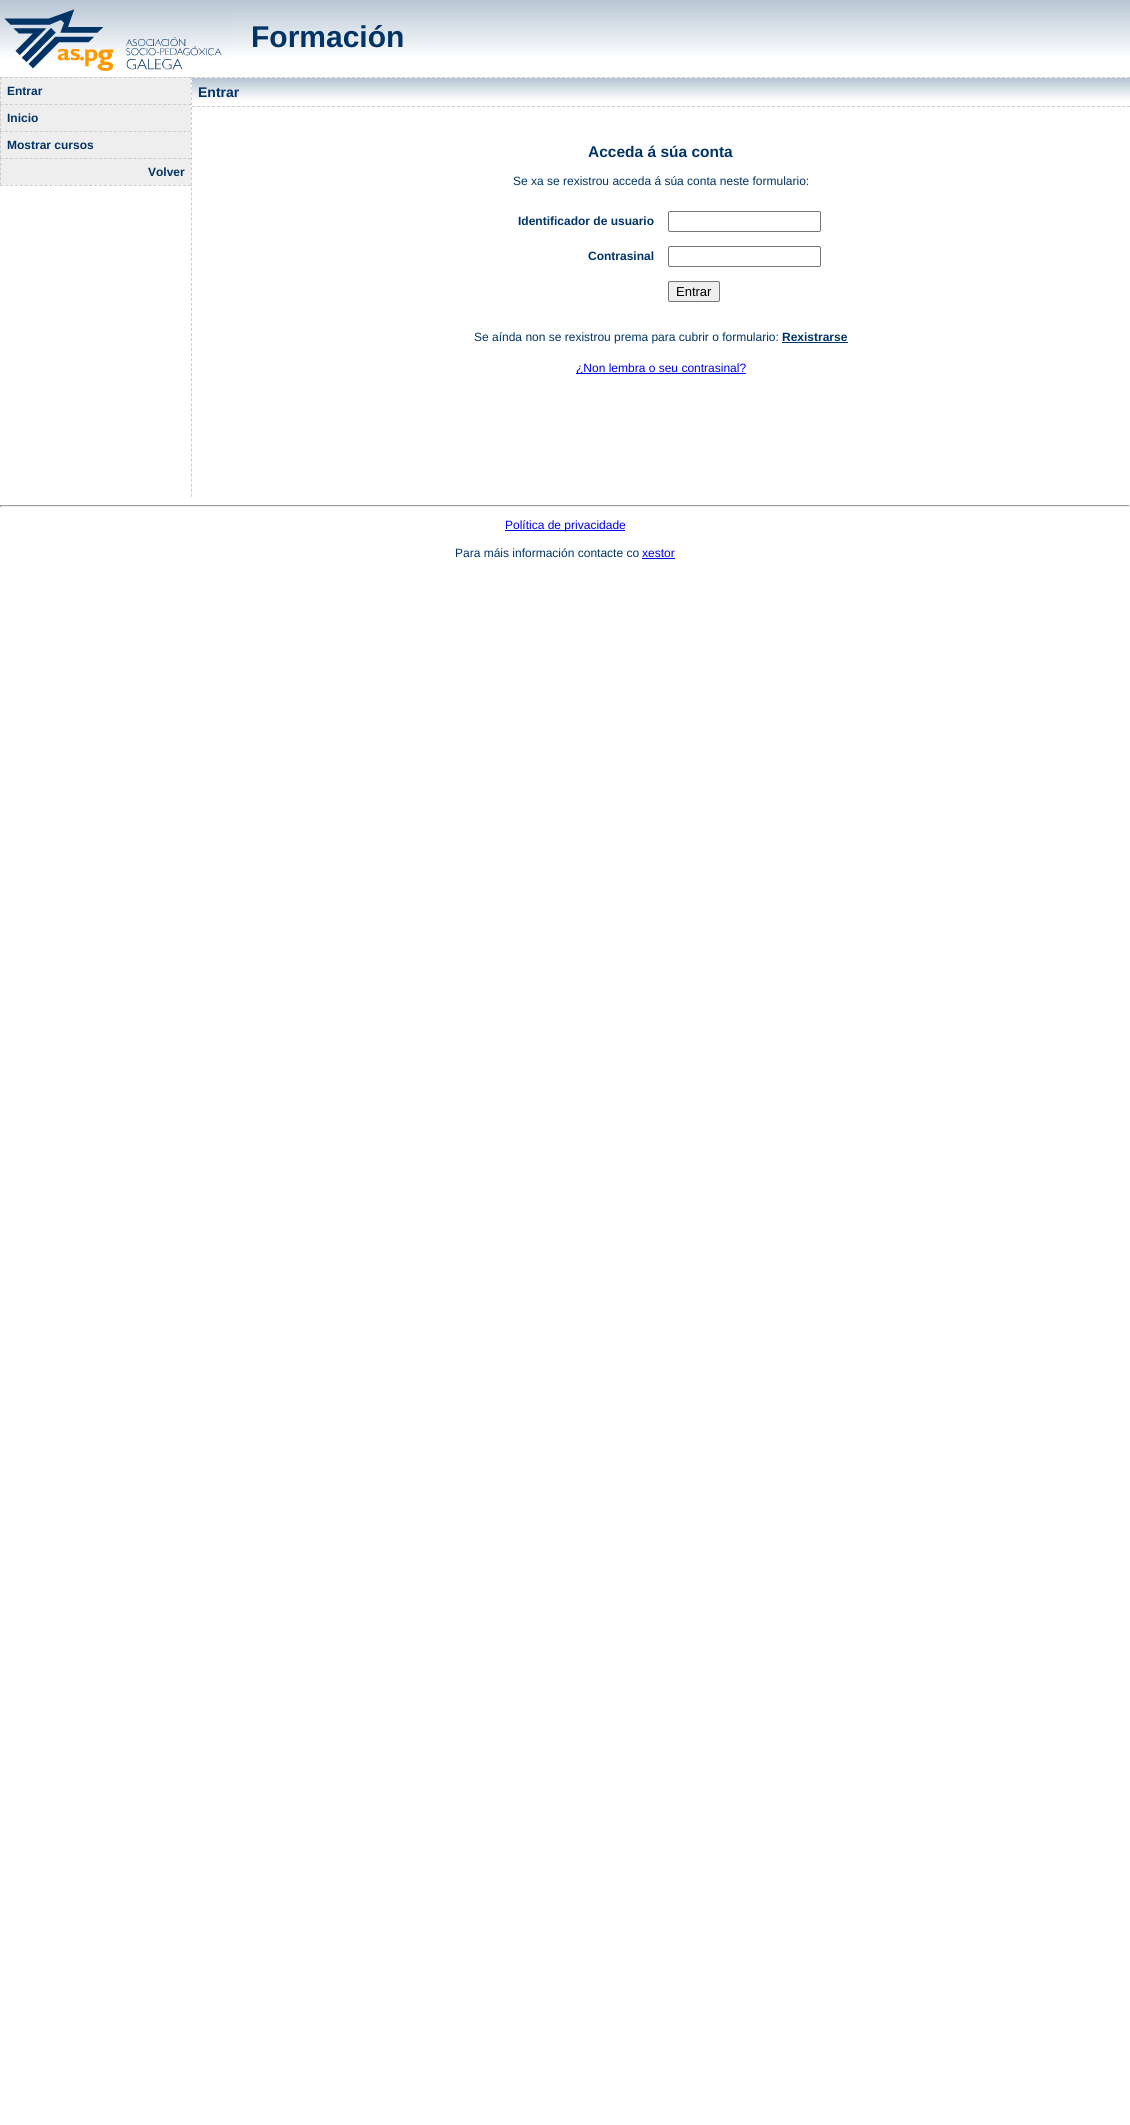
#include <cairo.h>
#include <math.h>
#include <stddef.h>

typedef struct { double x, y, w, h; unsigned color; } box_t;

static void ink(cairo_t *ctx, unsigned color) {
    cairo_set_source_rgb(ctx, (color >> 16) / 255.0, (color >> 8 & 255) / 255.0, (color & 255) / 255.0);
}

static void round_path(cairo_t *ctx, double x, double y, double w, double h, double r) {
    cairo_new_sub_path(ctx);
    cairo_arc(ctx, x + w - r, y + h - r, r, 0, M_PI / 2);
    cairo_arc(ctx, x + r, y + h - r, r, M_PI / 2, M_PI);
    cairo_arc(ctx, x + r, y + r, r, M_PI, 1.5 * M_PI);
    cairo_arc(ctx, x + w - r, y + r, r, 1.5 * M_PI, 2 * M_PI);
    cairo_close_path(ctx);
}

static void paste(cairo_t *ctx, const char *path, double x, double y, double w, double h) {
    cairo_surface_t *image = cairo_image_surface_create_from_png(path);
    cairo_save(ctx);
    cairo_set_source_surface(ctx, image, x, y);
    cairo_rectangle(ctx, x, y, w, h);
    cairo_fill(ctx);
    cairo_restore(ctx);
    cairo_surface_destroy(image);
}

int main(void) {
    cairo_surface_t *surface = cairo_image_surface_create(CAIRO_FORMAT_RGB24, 1130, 2125);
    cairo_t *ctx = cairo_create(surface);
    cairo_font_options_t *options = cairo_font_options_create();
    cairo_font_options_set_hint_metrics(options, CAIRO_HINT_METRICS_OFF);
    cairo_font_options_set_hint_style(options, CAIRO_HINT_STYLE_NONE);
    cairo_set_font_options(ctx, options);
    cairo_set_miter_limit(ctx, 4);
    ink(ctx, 0xFFFFFF);
    cairo_paint(ctx);
    paste(ctx, "media/1.png", 0, 0, 1130, 55);
    paste(ctx, "media/2.png", 0, 9, 231, 62);
    cairo_select_font_face(ctx, "Liberation Sans", CAIRO_FONT_SLANT_NORMAL, CAIRO_FONT_WEIGHT_BOLD);
    cairo_set_font_size(ctx, 30);
    ink(ctx, 0x003366);
    cairo_move_to(ctx, 251, 47);
    cairo_show_text(ctx, "Formación");
    cairo_new_path(ctx);
    cairo_move_to(ctx, 191.5, 77);
    cairo_line_to(ctx, 191.5, 497);
    ink(ctx, 0xCCCCCC);
    cairo_set_line_width(ctx, 1);
    cairo_set_dash(ctx, (double[]){3, 2.02}, 2, 0);
    cairo_stroke(ctx);
    ink(ctx, 0xEEEEEE);
    cairo_rectangle(ctx, 0, 77, 191, 108);
    cairo_fill(ctx);
    cairo_new_path(ctx);
    cairo_move_to(ctx, 0, 77.5);
    cairo_line_to(ctx, 191, 77.5);
    ink(ctx, 0xCCCCCC);
    cairo_set_dash(ctx, (double[]){3, 1.95}, 2, 0);
    cairo_stroke(ctx);
    cairo_new_path(ctx);
    cairo_move_to(ctx, 0.5, 77);
    cairo_line_to(ctx, 0.5, 104);
    cairo_set_dash(ctx, (double[]){3, 1.8}, 2, 0);
    cairo_stroke(ctx);
    cairo_set_font_size(ctx, 12);
    ink(ctx, 0x003366);
    cairo_move_to(ctx, 7, 95);
    cairo_show_text(ctx, "Entrar");
    cairo_new_path(ctx);
    cairo_move_to(ctx, 0, 104.5);
    cairo_line_to(ctx, 191, 104.5);
    ink(ctx, 0xCCCCCC);
    cairo_set_dash(ctx, (double[]){3, 1.95}, 2, 0);
    cairo_stroke(ctx);
    cairo_new_path(ctx);
    cairo_move_to(ctx, 0.5, 104);
    cairo_line_to(ctx, 0.5, 131);
    cairo_set_dash(ctx, (double[]){3, 1.8}, 2, 0);
    cairo_stroke(ctx);
    ink(ctx, 0x003366);
    cairo_move_to(ctx, 7, 122);
    cairo_show_text(ctx, "Inicio");
    cairo_new_path(ctx);
    cairo_move_to(ctx, 0, 131.5);
    cairo_line_to(ctx, 191, 131.5);
    ink(ctx, 0xCCCCCC);
    cairo_set_dash(ctx, (double[]){3, 1.95}, 2, 0);
    cairo_stroke(ctx);
    cairo_new_path(ctx);
    cairo_move_to(ctx, 0.5, 131);
    cairo_line_to(ctx, 0.5, 158);
    cairo_set_dash(ctx, (double[]){3, 1.8}, 2, 0);
    cairo_stroke(ctx);
    ink(ctx, 0x003366);
    cairo_move_to(ctx, 7, 149);
    cairo_show_text(ctx, "Mostrar cursos");
    cairo_new_path(ctx);
    cairo_move_to(ctx, 0, 158.5);
    cairo_line_to(ctx, 191, 158.5);
    ink(ctx, 0xCCCCCC);
    cairo_set_dash(ctx, (double[]){3, 1.95}, 2, 0);
    cairo_stroke(ctx);
    cairo_new_path(ctx);
    cairo_move_to(ctx, 0.5, 158);
    cairo_line_to(ctx, 0.5, 185);
    cairo_set_dash(ctx, (double[]){3, 1.8}, 2, 0);
    cairo_stroke(ctx);
    ink(ctx, 0x003366);
    cairo_move_to(ctx, 148, 176);
    cairo_show_text(ctx, "Volver");
    cairo_new_path(ctx);
    cairo_move_to(ctx, 0, 185.5);
    cairo_line_to(ctx, 191, 185.5);
    ink(ctx, 0xCCCCCC);
    cairo_set_dash(ctx, (double[]){3, 1.95}, 2, 0);
    cairo_stroke(ctx);
    paste(ctx, "media/3.png", 192, 78, 938, 21);
    cairo_new_path(ctx);
    cairo_move_to(ctx, 192, 77.5);
    cairo_line_to(ctx, 1130, 77.5);
    cairo_set_dash(ctx, (double[]){3, 2}, 2, 0);
    cairo_stroke(ctx);
    cairo_set_font_size(ctx, 14);
    ink(ctx, 0x003366);
    cairo_move_to(ctx, 198, 97);
    cairo_show_text(ctx, "Entrar");
    cairo_new_path(ctx);
    cairo_move_to(ctx, 192, 106.5);
    cairo_line_to(ctx, 1130, 106.5);
    ink(ctx, 0xCCCCCC);
    cairo_stroke(ctx);
    cairo_set_font_size(ctx, 15.5);
    ink(ctx, 0x003366);
    cairo_move_to(ctx, 588, 157);
    cairo_show_text(ctx, "Acceda á súa conta");
    cairo_select_font_face(ctx, "Liberation Sans", CAIRO_FONT_SLANT_NORMAL, CAIRO_FONT_WEIGHT_NORMAL);
    cairo_set_font_size(ctx, 12);
    cairo_move_to(ctx, 513, 185);
    cairo_show_text(ctx, "Se xa se rexistrou acceda á súa conta neste formulario:");
    cairo_select_font_face(ctx, "Liberation Sans", CAIRO_FONT_SLANT_NORMAL, CAIRO_FONT_WEIGHT_BOLD);
    cairo_move_to(ctx, 518, 225);
    cairo_show_text(ctx, "Identificador de usuario");
    round_path(ctx, 668.5, 211.5, 152, 20, 1.5);
    ink(ctx, 0x767676);
    cairo_set_dash(ctx, NULL, 0, 0);
    cairo_stroke(ctx);
    ink(ctx, 0x003366);
    cairo_move_to(ctx, 588, 260);
    cairo_show_text(ctx, "Contrasinal");
    round_path(ctx, 668.5, 246.5, 152, 20, 1.5);
    ink(ctx, 0x767676);
    cairo_stroke(ctx);
    ink(ctx, 0xEFEFEF);
    round_path(ctx, 668.5, 281.5, 51, 20, 1.5);
    cairo_fill_preserve(ctx);
    ink(ctx, 0x767676);
    cairo_stroke(ctx);
    cairo_select_font_face(ctx, "Liberation Sans", CAIRO_FONT_SLANT_NORMAL, CAIRO_FONT_WEIGHT_NORMAL);
    cairo_set_font_size(ctx, 13);
    ink(ctx, 0x000000);
    cairo_move_to(ctx, 676, 296);
    cairo_show_text(ctx, "Entrar");
    cairo_set_font_size(ctx, 12);
    ink(ctx, 0x003366);
    cairo_move_to(ctx, 474, 341);
    cairo_show_text(ctx, "Se aínda non se rexistrou prema para cubrir o formulario:");
    cairo_select_font_face(ctx, "Liberation Sans", CAIRO_FONT_SLANT_NORMAL, CAIRO_FONT_WEIGHT_BOLD);
    cairo_move_to(ctx, 782, 341);
    cairo_show_text(ctx, "Rexistrarse");
    cairo_rectangle(ctx, 782, 342, 66, 1);
    cairo_fill(ctx);
    ink(ctx, 0x0000EE);
    cairo_rectangle(ctx, 576, 373, 170, 1);
    cairo_fill(ctx);
    cairo_select_font_face(ctx, "Liberation Sans", CAIRO_FONT_SLANT_NORMAL, CAIRO_FONT_WEIGHT_NORMAL);
    cairo_move_to(ctx, 576, 372);
    cairo_show_text(ctx, "¿Non lembra o seu contrasinal?");
    {
        static const box_t items[] = {
            {0, 505, 1130, 1, 0x9F9F9F},
            {1129, 505, 1, 2, 0xEEEEEE},
            {0, 506, 1130, 1, 0xEEEEEE},
            {0, 505, 1, 2, 0x9F9F9F},
            {505, 530, 120, 1, 0x0000EE},
        };
        for (size_t i = 0; i < sizeof items / sizeof *items; i++) {
            ink(ctx, items[i].color);
            cairo_rectangle(ctx, items[i].x, items[i].y, items[i].w, items[i].h);
            cairo_fill(ctx);
        }
    }
    cairo_move_to(ctx, 505, 529);
    cairo_show_text(ctx, "Política de privacidade");
    ink(ctx, 0x003366);
    cairo_move_to(ctx, 455, 557);
    cairo_show_text(ctx, "Para máis información contacte co");
    ink(ctx, 0x0000EE);
    cairo_move_to(ctx, 642, 557);
    cairo_show_text(ctx, "xestor");
    cairo_rectangle(ctx, 642, 558, 33, 1);
    cairo_fill(ctx);
    cairo_surface_write_to_png(surface, "image.png");
    cairo_font_options_destroy(options);
    cairo_destroy(ctx);
    cairo_surface_destroy(surface);
    return 0;
}
